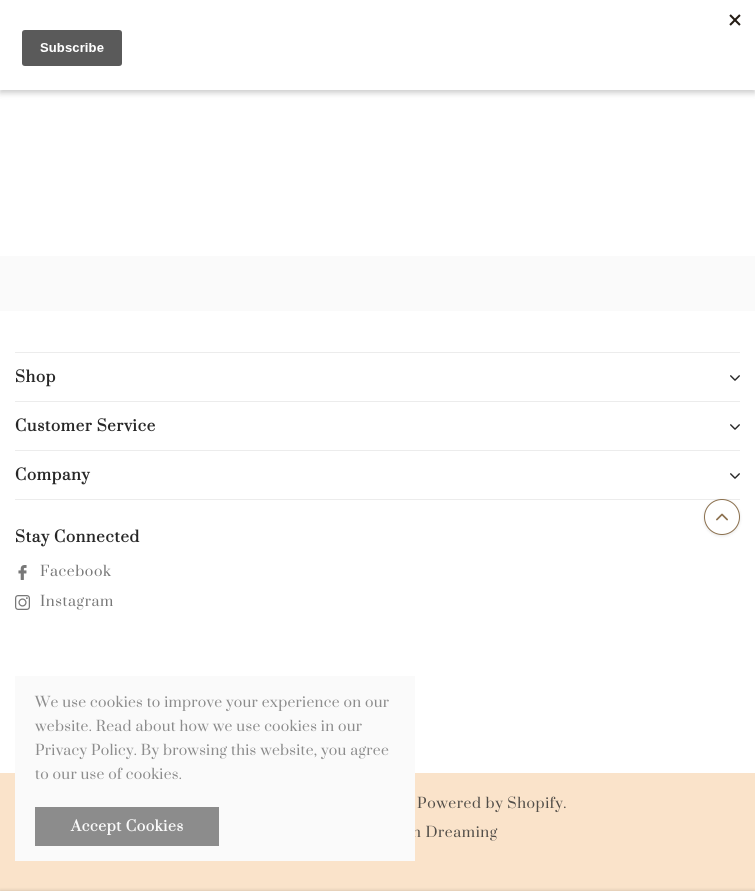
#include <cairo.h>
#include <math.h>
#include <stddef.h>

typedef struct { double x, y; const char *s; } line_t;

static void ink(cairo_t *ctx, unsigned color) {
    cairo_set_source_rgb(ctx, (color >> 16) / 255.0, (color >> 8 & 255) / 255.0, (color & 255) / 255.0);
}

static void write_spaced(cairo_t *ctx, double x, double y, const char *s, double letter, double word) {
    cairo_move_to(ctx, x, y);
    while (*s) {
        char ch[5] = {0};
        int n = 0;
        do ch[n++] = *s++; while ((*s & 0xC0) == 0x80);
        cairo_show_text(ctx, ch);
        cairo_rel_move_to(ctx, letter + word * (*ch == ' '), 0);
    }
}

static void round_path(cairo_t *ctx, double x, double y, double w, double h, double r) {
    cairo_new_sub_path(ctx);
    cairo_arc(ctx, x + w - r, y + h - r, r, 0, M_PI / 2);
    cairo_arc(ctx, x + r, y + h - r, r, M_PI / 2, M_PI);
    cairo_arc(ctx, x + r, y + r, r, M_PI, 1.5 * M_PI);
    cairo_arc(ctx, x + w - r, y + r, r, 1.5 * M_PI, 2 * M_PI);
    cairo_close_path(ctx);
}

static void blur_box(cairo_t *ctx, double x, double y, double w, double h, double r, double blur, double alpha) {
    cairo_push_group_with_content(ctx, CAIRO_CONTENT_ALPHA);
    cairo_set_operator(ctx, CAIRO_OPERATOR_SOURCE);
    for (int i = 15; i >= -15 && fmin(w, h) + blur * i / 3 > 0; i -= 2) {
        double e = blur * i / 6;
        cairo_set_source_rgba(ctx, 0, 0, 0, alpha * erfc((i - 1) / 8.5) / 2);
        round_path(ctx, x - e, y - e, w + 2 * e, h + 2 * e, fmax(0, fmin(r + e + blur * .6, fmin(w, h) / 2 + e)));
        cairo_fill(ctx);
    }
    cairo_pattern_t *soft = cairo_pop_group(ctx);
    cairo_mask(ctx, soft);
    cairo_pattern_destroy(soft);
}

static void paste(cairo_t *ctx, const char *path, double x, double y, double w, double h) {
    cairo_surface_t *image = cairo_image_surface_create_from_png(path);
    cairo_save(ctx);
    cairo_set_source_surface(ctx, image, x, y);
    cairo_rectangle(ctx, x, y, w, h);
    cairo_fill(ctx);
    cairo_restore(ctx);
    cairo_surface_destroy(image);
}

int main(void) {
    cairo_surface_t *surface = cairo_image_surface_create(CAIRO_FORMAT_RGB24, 755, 891);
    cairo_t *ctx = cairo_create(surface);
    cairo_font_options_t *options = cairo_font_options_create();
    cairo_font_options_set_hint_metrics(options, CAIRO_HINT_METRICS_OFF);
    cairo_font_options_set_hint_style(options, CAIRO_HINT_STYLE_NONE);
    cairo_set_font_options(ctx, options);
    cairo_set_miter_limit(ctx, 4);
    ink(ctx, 0xFFFFFF);
    cairo_paint(ctx);
    ink(ctx, 0x000000);
    blur_box(ctx, 0, 3, 755, 90, 0, 3, 0.2);
    ink(ctx, 0xFFFFFF);
    cairo_rectangle(ctx, 0, 0, 755, 90);
    cairo_fill(ctx);
    paste(ctx, "media/1.png", 22, 14, 719, 52);
    ink(ctx, 0xFAFAFA);
    cairo_rectangle(ctx, 0, 256, 755, 55);
    cairo_fill(ctx);
    ink(ctx, 0xFAE3CA);
    cairo_rectangle(ctx, 0, 773, 755, 118);
    cairo_fill(ctx);
    ink(ctx, 0x000000);
    blur_box(ctx, 0, 891, 755, 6, 0, 2, 0.2);
    ink(ctx, 0xECECEC);
    cairo_rectangle(ctx, 15, 352, 725, 1);
    cairo_fill(ctx);
    cairo_rectangle(ctx, 15, 401, 725, 1);
    cairo_fill(ctx);
    cairo_select_font_face(ctx, "Prata", CAIRO_FONT_SLANT_NORMAL, CAIRO_FONT_WEIGHT_BOLD);
    cairo_set_font_size(ctx, 15);
    ink(ctx, 0x272727);
    write_spaced(ctx, 15, 382, "Shop", 0.75, 0);
    paste(ctx, "media/2.png", 730, 375, 10, 6);
    ink(ctx, 0xECECEC);
    cairo_rectangle(ctx, 15, 450, 725, 1);
    cairo_fill(ctx);
    ink(ctx, 0x272727);
    write_spaced(ctx, 15, 431, "Customer Service", 0.75, 0);
    paste(ctx, "media/2.png", 730, 424, 10, 6);
    ink(ctx, 0xECECEC);
    cairo_rectangle(ctx, 15, 499, 725, 1);
    cairo_fill(ctx);
    ink(ctx, 0x272727);
    write_spaced(ctx, 15, 480, "Company", 0.75, 0);
    paste(ctx, "media/2.png", 730, 473, 10, 6);
    write_spaced(ctx, 15, 542, "Stay Connected", 0.75, 0);
    paste(ctx, "media/3.png", 18, 565, 9, 15);
    cairo_select_font_face(ctx, "Prata", CAIRO_FONT_SLANT_NORMAL, CAIRO_FONT_WEIGHT_NORMAL);
    cairo_set_font_size(ctx, 14);
    ink(ctx, 0x787878);
    write_spaced(ctx, 40, 576, "Facebook", 0.6, 0);
    paste(ctx, "media/4.png", 15, 595, 15, 15);
    write_spaced(ctx, 40, 606, "Instagram", 0.6, 0);
    ink(ctx, 0x514D48);
    write_spaced(ctx, 417, 808, "Powered by Shopify.", 0.6, 0);
    write_spaced(ctx, 412, 837, "n Dreaming", 0.6, 0);
    ink(ctx, 0x000000);
    blur_box(ctx, 704, 500, 36, 36, 18, 1.5, 0.1);
    ink(ctx, 0xFFFFFF);
    cairo_arc(ctx, 722, 517, 17.5, 0, 2 * M_PI);
    cairo_fill_preserve(ctx);
    ink(ctx, 0x8B704E);
    cairo_set_line_width(ctx, 1);
    cairo_stroke(ctx);
    paste(ctx, "media/5.png", 716, 513, 12, 8);
    ink(ctx, 0xFAFAFA);
    cairo_rectangle(ctx, 15, 676, 400, 185);
    cairo_fill(ctx);
    ink(ctx, 0x8C8C8C);
    {
        static const line_t items[] = {
            {35, 707, "We use cookies to improve your experience on our"},
            {35, 731, "website. Read about how we use cookies in our"},
            {35, 755, "Privacy Policy. By browsing this website, you agree"},
            {35, 779, "to our use of cookies."},
        };
        for (size_t i = 0; i < sizeof items / sizeof *items; i++) {
            write_spaced(ctx, items[i].x, items[i].y, items[i].s, 0.28, 0);
        }
    }
    cairo_rectangle(ctx, 35, 807, 184, 39);
    cairo_fill(ctx);
    cairo_select_font_face(ctx, "Prata", CAIRO_FONT_SLANT_NORMAL, CAIRO_FONT_WEIGHT_BOLD);
    ink(ctx, 0xFAFAFA);
    write_spaced(ctx, 71, 831, "Accept Cookies", 0.6, 0);
    cairo_surface_write_to_png(surface, "image.png");
    cairo_font_options_destroy(options);
    cairo_destroy(ctx);
    cairo_surface_destroy(surface);
    return 0;
}
